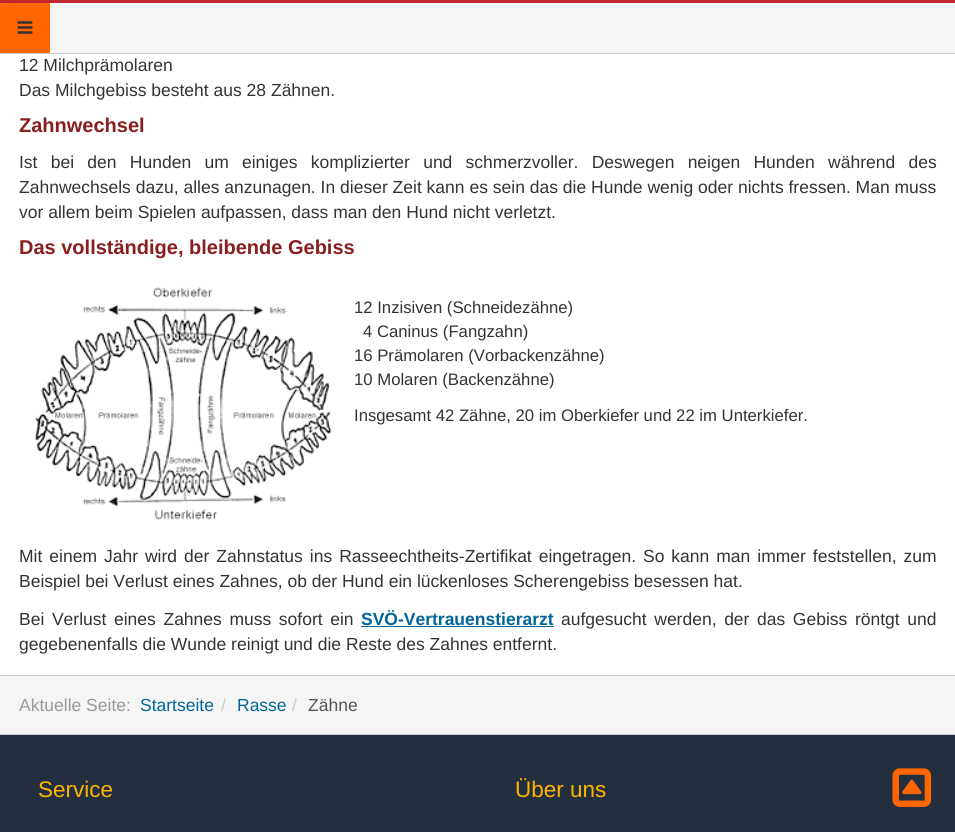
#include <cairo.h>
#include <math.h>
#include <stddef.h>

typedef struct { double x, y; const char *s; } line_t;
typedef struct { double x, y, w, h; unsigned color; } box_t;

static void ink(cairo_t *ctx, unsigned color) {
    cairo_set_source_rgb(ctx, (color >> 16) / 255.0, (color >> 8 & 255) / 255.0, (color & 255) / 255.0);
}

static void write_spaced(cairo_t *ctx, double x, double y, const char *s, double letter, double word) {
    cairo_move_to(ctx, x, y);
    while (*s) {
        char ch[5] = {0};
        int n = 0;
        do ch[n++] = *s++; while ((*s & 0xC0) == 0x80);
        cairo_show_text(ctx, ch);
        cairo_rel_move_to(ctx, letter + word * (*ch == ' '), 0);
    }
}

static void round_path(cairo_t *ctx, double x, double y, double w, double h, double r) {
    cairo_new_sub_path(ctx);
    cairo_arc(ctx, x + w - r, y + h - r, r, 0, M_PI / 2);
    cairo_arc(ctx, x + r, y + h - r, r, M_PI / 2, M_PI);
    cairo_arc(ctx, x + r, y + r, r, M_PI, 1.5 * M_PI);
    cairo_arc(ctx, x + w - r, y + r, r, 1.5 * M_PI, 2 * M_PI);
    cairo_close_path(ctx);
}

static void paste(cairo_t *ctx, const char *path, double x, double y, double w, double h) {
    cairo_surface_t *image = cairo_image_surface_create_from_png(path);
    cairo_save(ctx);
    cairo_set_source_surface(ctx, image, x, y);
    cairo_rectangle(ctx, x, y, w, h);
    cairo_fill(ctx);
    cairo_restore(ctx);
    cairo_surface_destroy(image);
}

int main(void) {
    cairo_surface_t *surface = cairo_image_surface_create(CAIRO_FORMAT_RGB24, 955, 832);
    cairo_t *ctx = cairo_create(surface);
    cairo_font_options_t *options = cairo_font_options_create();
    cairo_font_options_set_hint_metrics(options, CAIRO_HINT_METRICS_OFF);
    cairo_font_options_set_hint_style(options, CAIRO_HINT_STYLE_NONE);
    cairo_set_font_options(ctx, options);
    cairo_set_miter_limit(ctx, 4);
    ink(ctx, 0xFFFFFF);
    cairo_paint(ctx);
    {
        static const box_t items[] = {
            {0, 3, 955, 50, 0xF5F5F5},
            {0, 0, 955, 3, 0xC2272D},
            {0, 53, 955, 1, 0xCCCCCC},
        };
        for (size_t i = 0; i < sizeof items / sizeof *items; i++) {
            ink(ctx, items[i].color);
            cairo_rectangle(ctx, items[i].x, items[i].y, items[i].w, items[i].h);
            cairo_fill(ctx);
        }
    }
    ink(ctx, 0xFF6600);
    round_path(ctx, 0, 3, 50, 50, 1);
    cairo_fill(ctx);
    paste(ctx, "media/1.png", 17, 21, 16, 13);
    cairo_select_font_face(ctx, "Liberation Sans", CAIRO_FONT_SLANT_NORMAL, CAIRO_FONT_WEIGHT_NORMAL);
    cairo_set_font_size(ctx, 17.5);
    ink(ctx, 0x333333);
    cairo_move_to(ctx, 19, 71);
    cairo_show_text(ctx, "12 Milchprämolaren");
    cairo_move_to(ctx, 19, 96);
    cairo_show_text(ctx, "Das Milchgebiss besteht aus 28 Zähnen.");
    cairo_select_font_face(ctx, "Liberation Sans", CAIRO_FONT_SLANT_NORMAL, CAIRO_FONT_WEIGHT_BOLD);
    cairo_set_font_size(ctx, 20);
    ink(ctx, 0x881E1E);
    cairo_move_to(ctx, 19, 132);
    cairo_show_text(ctx, "Zahnwechsel");
    cairo_select_font_face(ctx, "Liberation Sans", CAIRO_FONT_SLANT_NORMAL, CAIRO_FONT_WEIGHT_NORMAL);
    cairo_set_font_size(ctx, 17.5);
    ink(ctx, 0x333333);
    write_spaced(ctx, 19, 168, "Ist bei den Hunden um einiges komplizierter und schmerzvoller. Deswegen neigen Hunden während des", 0, 8.4);
    cairo_move_to(ctx, 19, 193);
    cairo_show_text(ctx, "Zahnwechsels dazu, alles anzunagen. In dieser Zeit kann es sein das die Hunde wenig oder nichts fressen. Man muss");
    cairo_move_to(ctx, 19, 218);
    cairo_show_text(ctx, "vor allem beim Spielen aufpassen, dass man den Hund nicht verletzt.");
    cairo_select_font_face(ctx, "Liberation Sans", CAIRO_FONT_SLANT_NORMAL, CAIRO_FONT_WEIGHT_BOLD);
    cairo_set_font_size(ctx, 20);
    ink(ctx, 0x881E1E);
    cairo_move_to(ctx, 19, 254);
    cairo_show_text(ctx, "Das vollständige, bleibende Gebiss");
    paste(ctx, "media/2.png", 35, 287, 297, 233);
    cairo_select_font_face(ctx, "Liberation Sans", CAIRO_FONT_SLANT_NORMAL, CAIRO_FONT_WEIGHT_NORMAL);
    cairo_set_font_size(ctx, 16.7);
    ink(ctx, 0x333333);
    {
        static const line_t items[] = {
            {354, 313, "12 Inzisiven (Schneidezähne)"},
            {363, 337, "4 Caninus (Fangzahn)"},
            {354, 361, "16 Prämolaren (Vorbackenzähne)"},
            {354, 385, "10 Molaren (Backenzähne)"},
            {354, 421, "Insgesamt 42 Zähne, 20 im Oberkiefer und 22 im Unterkiefer."},
        };
        for (size_t i = 0; i < sizeof items / sizeof *items; i++) {
            cairo_move_to(ctx, items[i].x, items[i].y);
            cairo_show_text(ctx, items[i].s);
        }
    }
    cairo_set_font_size(ctx, 17.5);
    write_spaced(ctx, 19, 562, "Mit einem Jahr wird der Zahnstatus ins Rasseechtheits-Zertifikat eingetragen. So kann man immer feststellen, zum", 0, 2.1);
    cairo_move_to(ctx, 19, 587);
    cairo_show_text(ctx, "Beispiel bei Verlust eines Zahnes, ob der Hund ein lückenloses Scherengebiss besessen hat.");
    write_spaced(ctx, 19, 625, "Bei Verlust eines Zahnes muss sofort ein", 0, 2.75);
    cairo_select_font_face(ctx, "Liberation Sans", CAIRO_FONT_SLANT_NORMAL, CAIRO_FONT_WEIGHT_BOLD);
    ink(ctx, 0x006699);
    cairo_move_to(ctx, 361, 625);
    cairo_show_text(ctx, "SVÖ-Vertrauenstierarzt");
    cairo_rectangle(ctx, 361, 626, 193, 1);
    cairo_fill(ctx);
    cairo_select_font_face(ctx, "Liberation Sans", CAIRO_FONT_SLANT_NORMAL, CAIRO_FONT_WEIGHT_NORMAL);
    ink(ctx, 0x333333);
    write_spaced(ctx, 561, 625, "aufgesucht werden, der das Gebiss röntgt und", 0, 2.75);
    cairo_move_to(ctx, 19, 650);
    cairo_show_text(ctx, "gegebenenfalls die Wunde reinigt und die Reste des Zahnes entfernt.");
    ink(ctx, 0xF5F5F5);
    cairo_rectangle(ctx, 0, 676, 955, 58);
    cairo_fill(ctx);
    ink(ctx, 0xCCCCCC);
    cairo_rectangle(ctx, 0, 675, 955, 1);
    cairo_fill(ctx);
    ink(ctx, 0x999999);
    cairo_move_to(ctx, 19, 711);
    cairo_show_text(ctx, "Aktuelle Seite:");
    ink(ctx, 0x006699);
    cairo_move_to(ctx, 140, 711);
    cairo_show_text(ctx, "Startseite");
    ink(ctx, 0xCCCCCC);
    cairo_move_to(ctx, 221, 711);
    cairo_show_text(ctx, "/");
    ink(ctx, 0x006699);
    cairo_move_to(ctx, 237, 711);
    cairo_show_text(ctx, "Rasse");
    ink(ctx, 0xCCCCCC);
    cairo_move_to(ctx, 292, 711);
    cairo_show_text(ctx, "/");
    ink(ctx, 0x555555);
    cairo_move_to(ctx, 308, 711);
    cairo_show_text(ctx, "Zähne");
    ink(ctx, 0x232F3E);
    cairo_rectangle(ctx, 0, 735, 955, 97);
    cairo_fill(ctx);
    ink(ctx, 0xCCCCCC);
    cairo_rectangle(ctx, 0, 734, 955, 1);
    cairo_fill(ctx);
    cairo_set_font_size(ctx, 22.5);
    ink(ctx, 0xFFB400);
    cairo_move_to(ctx, 38, 797);
    cairo_show_text(ctx, "Service");
    cairo_move_to(ctx, 515, 797);
    cairo_show_text(ctx, "Über uns");
    paste(ctx, "media/3.png", 892, 768, 40, 39);
    cairo_surface_write_to_png(surface, "image.png");
    cairo_font_options_destroy(options);
    cairo_destroy(ctx);
    cairo_surface_destroy(surface);
    return 0;
}
